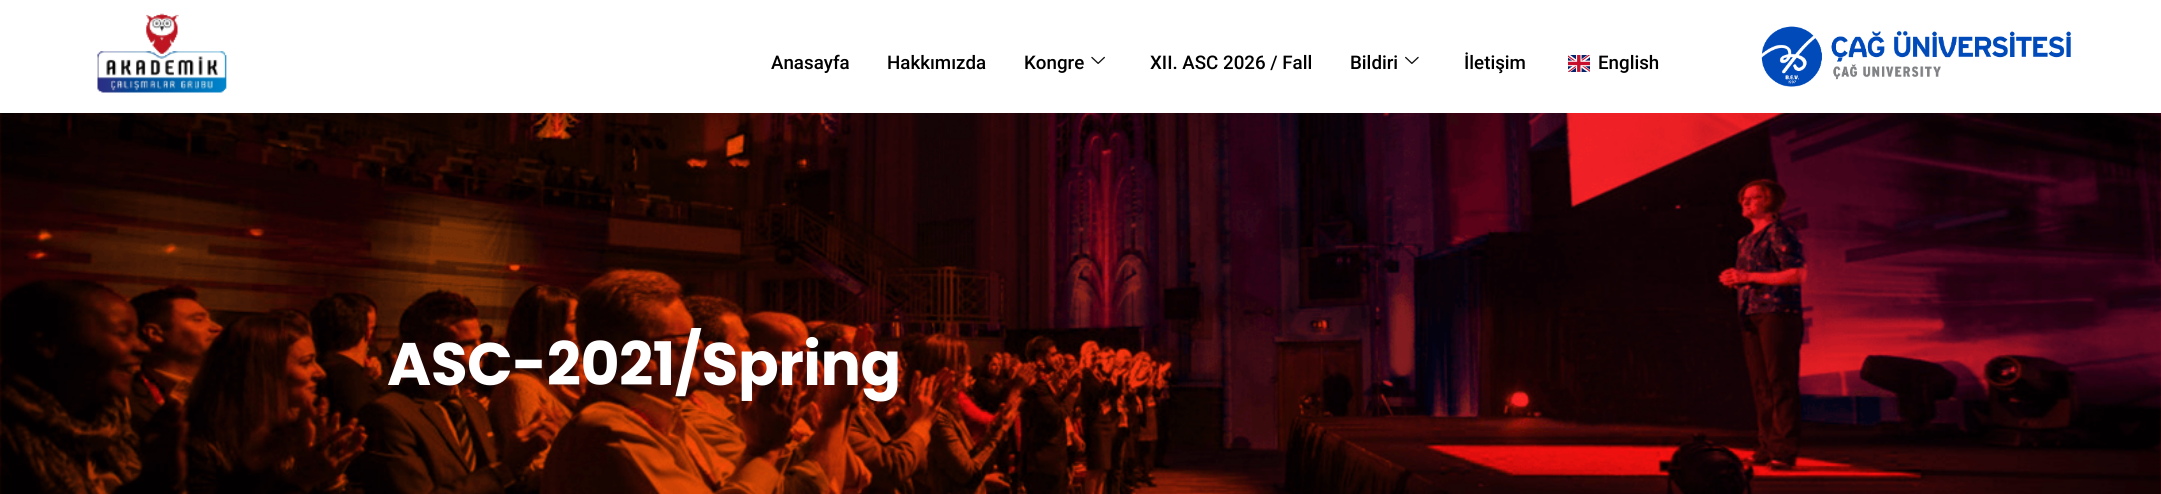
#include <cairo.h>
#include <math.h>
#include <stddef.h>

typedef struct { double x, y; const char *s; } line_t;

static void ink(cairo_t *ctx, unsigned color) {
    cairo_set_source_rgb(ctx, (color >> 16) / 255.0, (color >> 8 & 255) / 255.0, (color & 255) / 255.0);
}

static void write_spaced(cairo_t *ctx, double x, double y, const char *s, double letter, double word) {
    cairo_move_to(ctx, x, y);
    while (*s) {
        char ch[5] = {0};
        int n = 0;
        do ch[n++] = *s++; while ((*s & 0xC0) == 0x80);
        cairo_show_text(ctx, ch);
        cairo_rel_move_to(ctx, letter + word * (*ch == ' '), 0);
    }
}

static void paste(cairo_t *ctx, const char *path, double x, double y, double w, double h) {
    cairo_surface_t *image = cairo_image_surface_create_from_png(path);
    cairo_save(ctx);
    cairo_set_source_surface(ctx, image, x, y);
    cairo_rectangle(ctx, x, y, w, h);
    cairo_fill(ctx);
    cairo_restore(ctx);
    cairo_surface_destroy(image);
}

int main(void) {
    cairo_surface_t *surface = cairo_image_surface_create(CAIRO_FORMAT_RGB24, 2161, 494);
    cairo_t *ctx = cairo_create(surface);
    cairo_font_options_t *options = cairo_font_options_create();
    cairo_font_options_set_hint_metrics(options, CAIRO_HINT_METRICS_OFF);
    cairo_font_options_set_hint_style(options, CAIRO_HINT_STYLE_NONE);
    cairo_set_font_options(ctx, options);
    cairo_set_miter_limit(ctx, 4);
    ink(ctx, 0xFFFFFF);
    cairo_paint(ctx);
    paste(ctx, "media/1.png", 97, 13, 130, 80);
    cairo_select_font_face(ctx, "Roboto Medium", CAIRO_FONT_SLANT_NORMAL, CAIRO_FONT_WEIGHT_NORMAL);
    cairo_set_font_size(ctx, 18.75);
    ink(ctx, 0x000000);
    {
        static const line_t items[] = {
            {771, 69, "Anasayfa"},
            {887, 69, "Hakkımızda"},
            {1024, 69, "Kongre"},
        };
        for (size_t i = 0; i < sizeof items / sizeof *items; i++) {
            cairo_move_to(ctx, items[i].x, items[i].y);
            cairo_show_text(ctx, items[i].s);
        }
    }
    paste(ctx, "media/2.png", 1091, 56, 14, 8);
    cairo_move_to(ctx, 1150, 69);
    cairo_show_text(ctx, "XII. ASC 2026 / Fall");
    cairo_move_to(ctx, 1350, 69);
    cairo_show_text(ctx, "Bildiri");
    paste(ctx, "media/3.png", 1405, 56, 14, 8);
    cairo_move_to(ctx, 1464, 69);
    cairo_show_text(ctx, "İletişim");
    paste(ctx, "media/4.png", 1568, 55, 22, 17);
    cairo_move_to(ctx, 1598, 69);
    cairo_show_text(ctx, "English");
    paste(ctx, "media/5.png", 1761, 26, 311, 61);
    paste(ctx, "media/6.png", 0, 113, 2161, 381);
    cairo_select_font_face(ctx, "Poppins", CAIRO_FONT_SLANT_NORMAL, CAIRO_FONT_WEIGHT_BOLD);
    cairo_set_font_size(ctx, 60);
    ink(ctx, 0xFFFFFF);
    write_spaced(ctx, 387, 385, "ASC-2021/Spring", -0.5, 0);
    cairo_surface_write_to_png(surface, "image.png");
    cairo_font_options_destroy(options);
    cairo_destroy(ctx);
    cairo_surface_destroy(surface);
    return 0;
}
